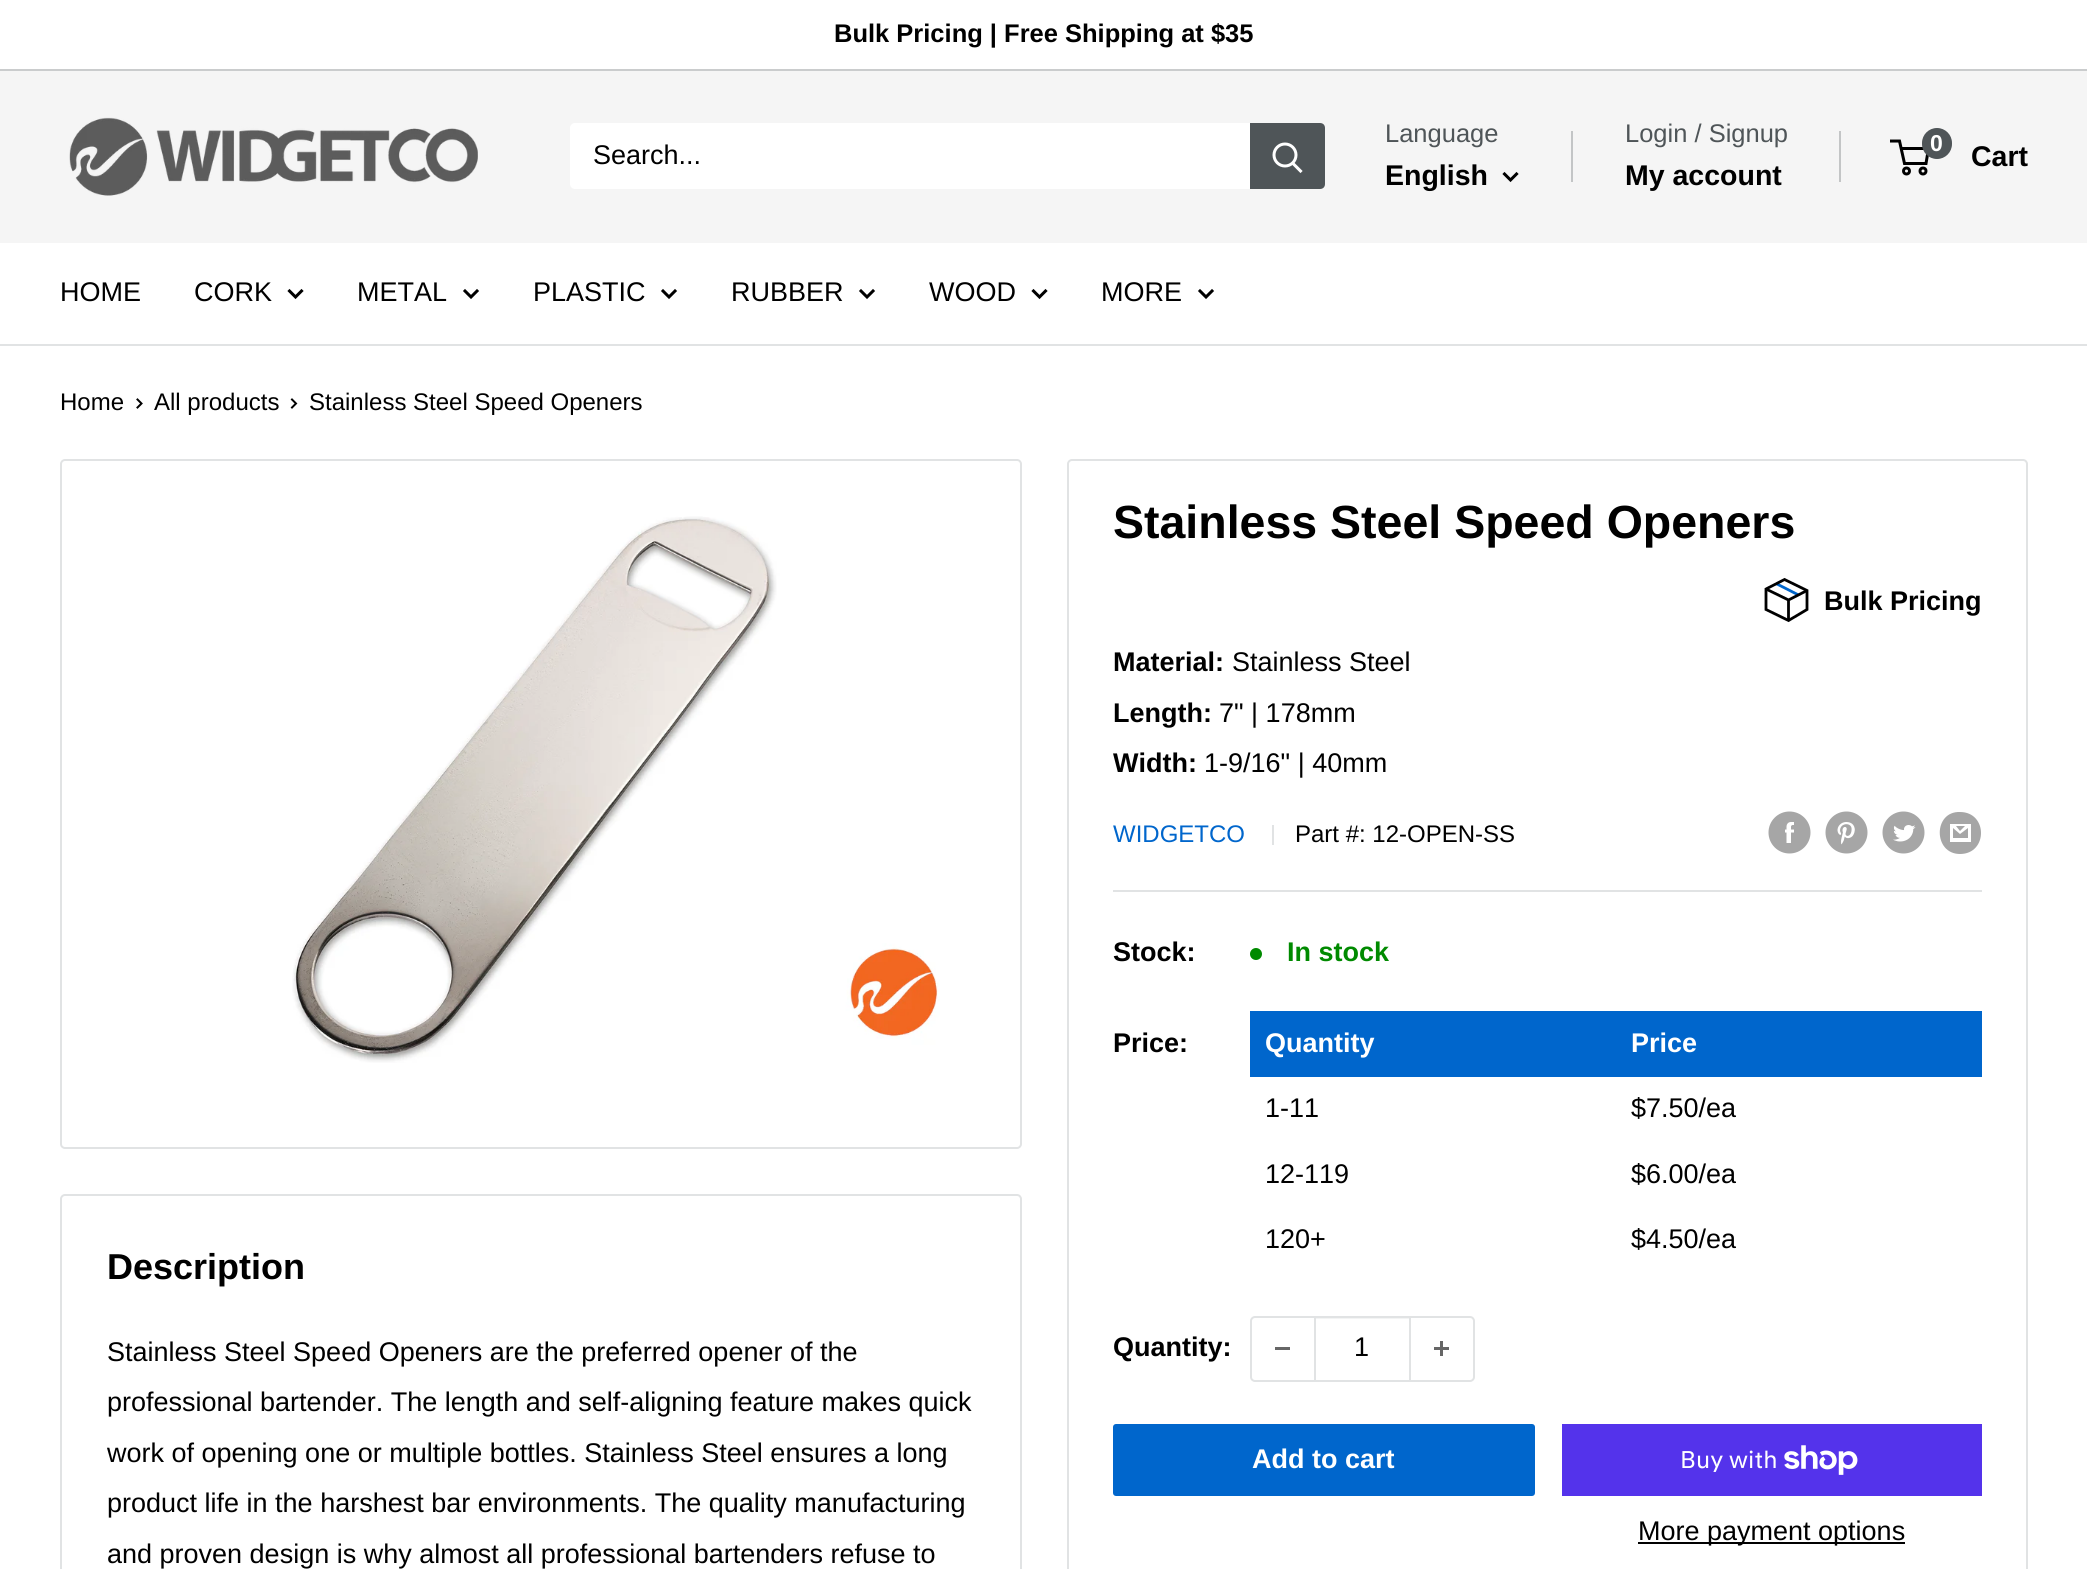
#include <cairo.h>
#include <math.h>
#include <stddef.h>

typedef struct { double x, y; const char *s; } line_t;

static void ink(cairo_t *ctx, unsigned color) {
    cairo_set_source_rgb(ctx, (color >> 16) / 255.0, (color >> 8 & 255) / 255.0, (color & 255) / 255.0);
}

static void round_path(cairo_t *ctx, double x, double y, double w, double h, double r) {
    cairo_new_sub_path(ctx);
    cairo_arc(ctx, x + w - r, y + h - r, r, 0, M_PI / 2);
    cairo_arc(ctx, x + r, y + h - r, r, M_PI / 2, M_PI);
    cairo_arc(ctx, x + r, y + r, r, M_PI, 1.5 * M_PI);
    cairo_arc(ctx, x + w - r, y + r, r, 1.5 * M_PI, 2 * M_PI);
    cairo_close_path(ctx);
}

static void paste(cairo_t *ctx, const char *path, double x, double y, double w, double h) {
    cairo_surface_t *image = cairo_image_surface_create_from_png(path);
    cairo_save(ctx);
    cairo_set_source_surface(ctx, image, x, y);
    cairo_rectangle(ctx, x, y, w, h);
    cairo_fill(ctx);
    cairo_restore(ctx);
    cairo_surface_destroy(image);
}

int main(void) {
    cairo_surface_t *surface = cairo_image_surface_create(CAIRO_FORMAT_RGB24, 2087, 1569);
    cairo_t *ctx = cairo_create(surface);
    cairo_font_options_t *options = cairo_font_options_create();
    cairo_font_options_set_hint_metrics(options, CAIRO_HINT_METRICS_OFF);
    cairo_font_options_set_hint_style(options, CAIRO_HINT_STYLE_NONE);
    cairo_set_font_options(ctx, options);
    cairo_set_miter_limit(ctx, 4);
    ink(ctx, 0xFFFFFF);
    cairo_paint(ctx);
    ink(ctx, 0xCACCCD);
    cairo_rectangle(ctx, 0, 69, 2087, 2);
    cairo_fill(ctx);
    cairo_select_font_face(ctx, "Liberation Sans", CAIRO_FONT_SLANT_NORMAL, CAIRO_FONT_WEIGHT_BOLD);
    cairo_set_font_size(ctx, 25.5);
    ink(ctx, 0x000000);
    cairo_move_to(ctx, 834, 42);
    cairo_show_text(ctx, "Bulk Pricing | Free Shipping at $35");
    ink(ctx, 0xF5F5F5);
    cairo_rectangle(ctx, 0, 71, 2087, 172);
    cairo_fill(ctx);
    paste(ctx, "media/1.png", 69, 117, 409, 79);
    ink(ctx, 0xFFFFFF);
    round_path(ctx, 570, 123, 755, 66, 5);
    cairo_fill(ctx);
    cairo_select_font_face(ctx, "Liberation Sans", CAIRO_FONT_SLANT_NORMAL, CAIRO_FONT_WEIGHT_NORMAL);
    cairo_set_font_size(ctx, 27);
    ink(ctx, 0x000000);
    cairo_move_to(ctx, 593, 164);
    cairo_show_text(ctx, "Search...");
    ink(ctx, 0x4F5558);
    cairo_new_path(ctx);
    cairo_move_to(ctx, 1250, 123);
    cairo_line_to(ctx, 1320, 123);
    cairo_curve_to(ctx, 1323, 123, 1325, 125, 1325, 128);
    cairo_line_to(ctx, 1325, 184);
    cairo_curve_to(ctx, 1325, 187, 1323, 189, 1320, 189);
    cairo_line_to(ctx, 1250, 189);
    cairo_close_path(ctx);
    cairo_fill(ctx);
    cairo_new_path(ctx);
    cairo_move_to(ctx, 1300.5, 171);
    cairo_line_to(ctx, 1293, 163.5);
    ink(ctx, 0xFFFFFF);
    cairo_set_line_width(ctx, 3);
    cairo_set_line_cap(ctx, CAIRO_LINE_CAP_SQUARE);
    cairo_stroke(ctx);
    cairo_arc(ctx, 1285, 155, 11, 0, 2 * M_PI);
    cairo_set_line_cap(ctx, CAIRO_LINE_CAP_BUTT);
    cairo_stroke(ctx);
    cairo_set_font_size(ctx, 25.5);
    ink(ctx, 0x4F5558);
    cairo_move_to(ctx, 1385, 142);
    cairo_show_text(ctx, "Language");
    cairo_select_font_face(ctx, "Liberation Sans", CAIRO_FONT_SLANT_NORMAL, CAIRO_FONT_WEIGHT_BOLD);
    cairo_set_font_size(ctx, 28.5);
    ink(ctx, 0x000000);
    cairo_move_to(ctx, 1385, 185);
    cairo_show_text(ctx, "English");
    cairo_new_path(ctx);
    cairo_move_to(ctx, 1516.5, 174);
    cairo_line_to(ctx, 1510.5, 180);
    cairo_line_to(ctx, 1504.5, 174);
    cairo_set_line_cap(ctx, CAIRO_LINE_CAP_SQUARE);
    cairo_stroke(ctx);
    ink(ctx, 0xC3C5C6);
    cairo_rectangle(ctx, 1571, 131, 2, 51);
    cairo_fill(ctx);
    cairo_select_font_face(ctx, "Liberation Sans", CAIRO_FONT_SLANT_NORMAL, CAIRO_FONT_WEIGHT_NORMAL);
    cairo_set_font_size(ctx, 25.5);
    ink(ctx, 0x4F5558);
    cairo_move_to(ctx, 1625, 142);
    cairo_show_text(ctx, "Login / Signup");
    ink(ctx, 0xC3C5C6);
    cairo_rectangle(ctx, 1839, 131, 2, 51);
    cairo_fill(ctx);
    cairo_select_font_face(ctx, "Liberation Sans", CAIRO_FONT_SLANT_NORMAL, CAIRO_FONT_WEIGHT_BOLD);
    cairo_set_font_size(ctx, 28.5);
    ink(ctx, 0x000000);
    cairo_move_to(ctx, 1625, 185);
    cairo_show_text(ctx, "My account");
    cairo_new_path(ctx);
    cairo_arc(ctx, 1906.5, 171, 3, 0, 2 * M_PI);
    cairo_set_line_cap(ctx, CAIRO_LINE_CAP_BUTT);
    cairo_stroke(ctx);
    cairo_arc(ctx, 1923, 171, 3, 0, 2 * M_PI);
    cairo_stroke(ctx);
    cairo_new_path(ctx);
    cairo_move_to(ctx, 1901, 148.5);
    cairo_line_to(ctx, 1928.5, 148.5);
    cairo_line_to(ctx, 1926, 163.5);
    cairo_line_to(ctx, 1904.5, 163.5);
    cairo_line_to(ctx, 1899.5, 141);
    cairo_line_to(ctx, 1890, 141);
    cairo_stroke(ctx);
    ink(ctx, 0x4F5558);
    round_path(ctx, 1922, 128, 30, 31, 15);
    cairo_fill(ctx);
    cairo_set_font_size(ctx, 23);
    ink(ctx, 0xFFFFFF);
    cairo_move_to(ctx, 1930, 151);
    cairo_show_text(ctx, "0");
    cairo_set_font_size(ctx, 28.5);
    ink(ctx, 0x000000);
    cairo_move_to(ctx, 1971, 166);
    cairo_show_text(ctx, "Cart");
    ink(ctx, 0xE1E3E4);
    cairo_rectangle(ctx, 0, 344, 2087, 2);
    cairo_fill(ctx);
    cairo_select_font_face(ctx, "Liberation Sans", CAIRO_FONT_SLANT_NORMAL, CAIRO_FONT_WEIGHT_NORMAL);
    cairo_set_font_size(ctx, 27);
    ink(ctx, 0x000000);
    cairo_move_to(ctx, 60, 301);
    cairo_show_text(ctx, "HOME");
    cairo_move_to(ctx, 194, 301);
    cairo_show_text(ctx, "CORK");
    cairo_new_path(ctx);
    cairo_move_to(ctx, 301.5, 291);
    cairo_line_to(ctx, 295.5, 297);
    cairo_line_to(ctx, 289.5, 291);
    cairo_set_line_cap(ctx, CAIRO_LINE_CAP_SQUARE);
    cairo_stroke(ctx);
    cairo_move_to(ctx, 357, 301);
    cairo_show_text(ctx, "METAL");
    cairo_new_path(ctx);
    cairo_move_to(ctx, 477, 291);
    cairo_line_to(ctx, 471, 297);
    cairo_line_to(ctx, 465, 291);
    cairo_stroke(ctx);
    cairo_move_to(ctx, 533, 301);
    cairo_show_text(ctx, "PLASTIC");
    cairo_new_path(ctx);
    cairo_move_to(ctx, 675, 291);
    cairo_line_to(ctx, 669, 297);
    cairo_line_to(ctx, 663, 291);
    cairo_stroke(ctx);
    cairo_move_to(ctx, 731, 301);
    cairo_show_text(ctx, "RUBBER");
    cairo_new_path(ctx);
    cairo_move_to(ctx, 873, 291);
    cairo_line_to(ctx, 867, 297);
    cairo_line_to(ctx, 861, 291);
    cairo_stroke(ctx);
    cairo_move_to(ctx, 929, 301);
    cairo_show_text(ctx, "WOOD");
    cairo_new_path(ctx);
    cairo_move_to(ctx, 1045.5, 291);
    cairo_line_to(ctx, 1039.5, 297);
    cairo_line_to(ctx, 1033.5, 291);
    cairo_stroke(ctx);
    cairo_move_to(ctx, 1101, 301);
    cairo_show_text(ctx, "MORE");
    cairo_new_path(ctx);
    cairo_move_to(ctx, 1212, 291);
    cairo_line_to(ctx, 1206, 297);
    cairo_line_to(ctx, 1200, 291);
    cairo_stroke(ctx);
    cairo_set_font_size(ctx, 24);
    cairo_move_to(ctx, 60, 410);
    cairo_show_text(ctx, "Home");
    cairo_new_path(ctx);
    cairo_move_to(ctx, 137.5, 399.5);
    cairo_line_to(ctx, 141.5, 403.5);
    cairo_line_to(ctx, 137.5, 407.5);
    cairo_set_line_width(ctx, 2);
    cairo_stroke(ctx);
    cairo_move_to(ctx, 154, 410);
    cairo_show_text(ctx, "All products");
    cairo_new_path(ctx);
    cairo_move_to(ctx, 292, 399.5);
    cairo_line_to(ctx, 296, 403.5);
    cairo_line_to(ctx, 292, 407.5);
    cairo_stroke(ctx);
    cairo_move_to(ctx, 309, 410);
    cairo_show_text(ctx, "Stainless Steel Speed Openers");
    round_path(ctx, 61, 460, 960, 688, 4);
    ink(ctx, 0xE1E3E4);
    cairo_set_line_cap(ctx, CAIRO_LINE_CAP_BUTT);
    cairo_stroke(ctx);
    paste(ctx, "media/2.png", 292, 516, 648, 547);
    round_path(ctx, 1068, 460, 959, 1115, 4);
    cairo_stroke(ctx);
    cairo_select_font_face(ctx, "Liberation Sans", CAIRO_FONT_SLANT_NORMAL, CAIRO_FONT_WEIGHT_BOLD);
    cairo_set_font_size(ctx, 46.5);
    ink(ctx, 0x000000);
    cairo_move_to(ctx, 1113, 538);
    cairo_show_text(ctx, "Stainless Steel Speed Openers");
    cairo_new_path(ctx);
    cairo_move_to(ctx, 1776, 583.5);
    cairo_line_to(ctx, 1798.5, 595);
    ink(ctx, 0x0066CC);
    cairo_set_line_width(ctx, 2.8);
    cairo_stroke(ctx);
    cairo_new_path(ctx);
    cairo_move_to(ctx, 1807, 590.5);
    cairo_line_to(ctx, 1788.5, 600);
    cairo_line_to(ctx, 1766, 589);
    cairo_move_to(ctx, 1788.5, 600);
    cairo_line_to(ctx, 1788.5, 620.5);
    ink(ctx, 0x000000);
    cairo_stroke(ctx);
    cairo_new_path(ctx);
    cairo_move_to(ctx, 1807, 590.5);
    cairo_line_to(ctx, 1807, 609.5);
    cairo_line_to(ctx, 1788.5, 620.5);
    cairo_line_to(ctx, 1766, 609.5);
    cairo_line_to(ctx, 1766, 589);
    cairo_line_to(ctx, 1784.5, 579.5);
    cairo_close_path(ctx);
    cairo_set_line_cap(ctx, CAIRO_LINE_CAP_SQUARE);
    cairo_stroke(ctx);
    cairo_set_font_size(ctx, 27);
    cairo_move_to(ctx, 1824, 610);
    cairo_show_text(ctx, "Bulk Pricing");
    cairo_move_to(ctx, 1113, 671);
    cairo_show_text(ctx, "Material:");
    cairo_select_font_face(ctx, "Liberation Sans", CAIRO_FONT_SLANT_NORMAL, CAIRO_FONT_WEIGHT_NORMAL);
    cairo_move_to(ctx, 1232, 671);
    cairo_show_text(ctx, "Stainless Steel");
    cairo_select_font_face(ctx, "Liberation Sans", CAIRO_FONT_SLANT_NORMAL, CAIRO_FONT_WEIGHT_BOLD);
    cairo_move_to(ctx, 1113, 722);
    cairo_show_text(ctx, "Length:");
    cairo_select_font_face(ctx, "Liberation Sans", CAIRO_FONT_SLANT_NORMAL, CAIRO_FONT_WEIGHT_NORMAL);
    cairo_move_to(ctx, 1219, 722);
    cairo_show_text(ctx, "7\" | 178mm");
    cairo_select_font_face(ctx, "Liberation Sans", CAIRO_FONT_SLANT_NORMAL, CAIRO_FONT_WEIGHT_BOLD);
    cairo_move_to(ctx, 1113, 772);
    cairo_show_text(ctx, "Width:");
    cairo_select_font_face(ctx, "Liberation Sans", CAIRO_FONT_SLANT_NORMAL, CAIRO_FONT_WEIGHT_NORMAL);
    cairo_move_to(ctx, 1204, 772);
    cairo_show_text(ctx, "1-9/16\" | 40mm");
    cairo_set_font_size(ctx, 24);
    ink(ctx, 0x0066CC);
    cairo_move_to(ctx, 1113, 842);
    cairo_show_text(ctx, "WIDGETCO");
    ink(ctx, 0xE1E3E4);
    cairo_rectangle(ctx, 1272, 825, 2, 20);
    cairo_fill(ctx);
    ink(ctx, 0x000000);
    cairo_move_to(ctx, 1295, 842);
    cairo_show_text(ctx, "Part #: 12-OPEN-SS");
    paste(ctx, "media/3.png", 1768, 811, 43, 43);
    paste(ctx, "media/4.png", 1825, 811, 43, 43);
    paste(ctx, "media/5.png", 1882, 811, 43, 43);
    ink(ctx, 0xA6A6A6);
    cairo_new_path(ctx);
    cairo_move_to(ctx, 1960, 854);
    cairo_curve_to(ctx, 1933, 854, 1933, 811, 1960, 812);
    cairo_curve_to(ctx, 1988, 812, 1988, 854, 1960, 854);
    cairo_close_path(ctx);
    cairo_move_to(ctx, 1956, 826);
    cairo_line_to(ctx, 1965, 826);
    cairo_line_to(ctx, 1960, 831);
    cairo_close_path(ctx);
    cairo_move_to(ctx, 1968, 828);
    cairo_line_to(ctx, 1968, 838);
    cairo_line_to(ctx, 1953, 838);
    cairo_line_to(ctx, 1953, 828);
    cairo_line_to(ctx, 1960, 834);
    cairo_close_path(ctx);
    cairo_move_to(ctx, 1971, 824);
    cairo_line_to(ctx, 1950, 824);
    cairo_line_to(ctx, 1950, 842);
    cairo_line_to(ctx, 1971, 842);
    cairo_close_path(ctx);
    cairo_fill(ctx);
    ink(ctx, 0xE1E3E4);
    cairo_rectangle(ctx, 1113, 890, 869, 2);
    cairo_fill(ctx);
    cairo_select_font_face(ctx, "Liberation Sans", CAIRO_FONT_SLANT_NORMAL, CAIRO_FONT_WEIGHT_BOLD);
    cairo_set_font_size(ctx, 27);
    ink(ctx, 0x000000);
    cairo_move_to(ctx, 1113, 961);
    cairo_show_text(ctx, "Stock:");
    ink(ctx, 0x008A00);
    cairo_new_path(ctx);
    cairo_arc(ctx, 1256, 954, 6, 0, 2 * M_PI);
    cairo_fill(ctx);
    cairo_move_to(ctx, 1287, 961);
    cairo_show_text(ctx, "In stock");
    ink(ctx, 0x000000);
    cairo_move_to(ctx, 1113, 1052);
    cairo_show_text(ctx, "Price:");
    ink(ctx, 0x0066CC);
    cairo_rectangle(ctx, 1250, 1011, 732, 66);
    cairo_fill(ctx);
    ink(ctx, 0xFFFFFF);
    cairo_move_to(ctx, 1265, 1052);
    cairo_show_text(ctx, "Quantity");
    cairo_move_to(ctx, 1631, 1052);
    cairo_show_text(ctx, "Price");
    cairo_select_font_face(ctx, "Liberation Sans", CAIRO_FONT_SLANT_NORMAL, CAIRO_FONT_WEIGHT_NORMAL);
    ink(ctx, 0x000000);
    {
        static const line_t items[] = {
            {1265, 1117, "1-11"},
            {1631, 1117, "$7.50/ea"},
            {1265, 1183, "12-119"},
            {1631, 1183, "$6.00/ea"},
            {1265, 1248, "120+"},
            {1631, 1248, "$4.50/ea"},
        };
        for (size_t i = 0; i < sizeof items / sizeof *items; i++) {
            cairo_move_to(ctx, items[i].x, items[i].y);
            cairo_show_text(ctx, items[i].s);
        }
    }
    cairo_select_font_face(ctx, "Liberation Sans", CAIRO_FONT_SLANT_NORMAL, CAIRO_FONT_WEIGHT_BOLD);
    cairo_move_to(ctx, 1113, 1356);
    cairo_show_text(ctx, "Quantity:");
    round_path(ctx, 1251, 1317, 223, 64, 4);
    ink(ctx, 0xE1E3E4);
    cairo_set_line_width(ctx, 2);
    cairo_set_line_cap(ctx, CAIRO_LINE_CAP_BUTT);
    cairo_stroke(ctx);
    ink(ctx, 0x666666);
    cairo_rectangle(ctx, 1275, 1347, 15, 3);
    cairo_fill(ctx);
    cairo_set_source_rgba(ctx, 0.882, 0.89, 0.894, 0.4);
    cairo_rectangle(ctx, 1316, 1318, 93, 1);
    cairo_fill(ctx);
    ink(ctx, 0xE1E3E4);
    cairo_rectangle(ctx, 1409, 1317, 2, 63);
    cairo_fill(ctx);
    cairo_rectangle(ctx, 1314, 1317, 2, 63);
    cairo_fill(ctx);
    cairo_select_font_face(ctx, "Liberation Sans", CAIRO_FONT_SLANT_NORMAL, CAIRO_FONT_WEIGHT_NORMAL);
    ink(ctx, 0x000000);
    cairo_move_to(ctx, 1354, 1356);
    cairo_show_text(ctx, "1");
    paste(ctx, "media/6.png", 1434, 1341, 15, 15);
    ink(ctx, 0x0066CC);
    round_path(ctx, 1113, 1424, 422, 72, 3);
    cairo_fill(ctx);
    cairo_select_font_face(ctx, "Liberation Sans", CAIRO_FONT_SLANT_NORMAL, CAIRO_FONT_WEIGHT_BOLD);
    ink(ctx, 0xFFFFFF);
    cairo_move_to(ctx, 1252, 1468);
    cairo_show_text(ctx, "Add to cart");
    ink(ctx, 0x5433EB);
    cairo_rectangle(ctx, 1562, 1424, 420, 72);
    cairo_fill(ctx);
    cairo_select_font_face(ctx, "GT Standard", CAIRO_FONT_SLANT_NORMAL, CAIRO_FONT_WEIGHT_NORMAL);
    cairo_set_font_size(ctx, 24);
    ink(ctx, 0xFFFFFF);
    cairo_move_to(ctx, 1680, 1468);
    cairo_show_text(ctx, "Buy with");
    paste(ctx, "media/7.png", 1784, 1445, 74, 30);
    ink(ctx, 0x000000);
    cairo_rectangle(ctx, 1638, 1542, 267, 2);
    cairo_fill(ctx);
    cairo_select_font_face(ctx, "Liberation Sans", CAIRO_FONT_SLANT_NORMAL, CAIRO_FONT_WEIGHT_NORMAL);
    cairo_set_font_size(ctx, 27);
    cairo_move_to(ctx, 1638, 1540);
    cairo_show_text(ctx, "More payment options");
    round_path(ctx, 61, 1195, 960, 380, 4);
    ink(ctx, 0xE1E3E4);
    cairo_stroke(ctx);
    cairo_select_font_face(ctx, "Liberation Sans", CAIRO_FONT_SLANT_NORMAL, CAIRO_FONT_WEIGHT_BOLD);
    cairo_set_font_size(ctx, 36);
    ink(ctx, 0x000000);
    cairo_move_to(ctx, 107, 1279);
    cairo_show_text(ctx, "Description");
    cairo_select_font_face(ctx, "Liberation Sans", CAIRO_FONT_SLANT_NORMAL, CAIRO_FONT_WEIGHT_NORMAL);
    cairo_set_font_size(ctx, 27);
    {
        static const line_t items[] = {
            {107, 1361, "Stainless Steel Speed Openers are the preferred opener of the"},
            {107, 1411, "professional bartender. The length and self-aligning feature makes quick"},
            {107, 1462, "work of opening one or multiple bottles. Stainless Steel ensures a long"},
            {107, 1512, "product life in the harshest bar environments. The quality manufacturing"},
            {107, 1563, "and proven design is why almost all professional bartenders refuse to"},
        };
        for (size_t i = 0; i < sizeof items / sizeof *items; i++) {
            cairo_move_to(ctx, items[i].x, items[i].y);
            cairo_show_text(ctx, items[i].s);
        }
    }
    cairo_surface_write_to_png(surface, "image.png");
    cairo_font_options_destroy(options);
    cairo_destroy(ctx);
    cairo_surface_destroy(surface);
    return 0;
}
